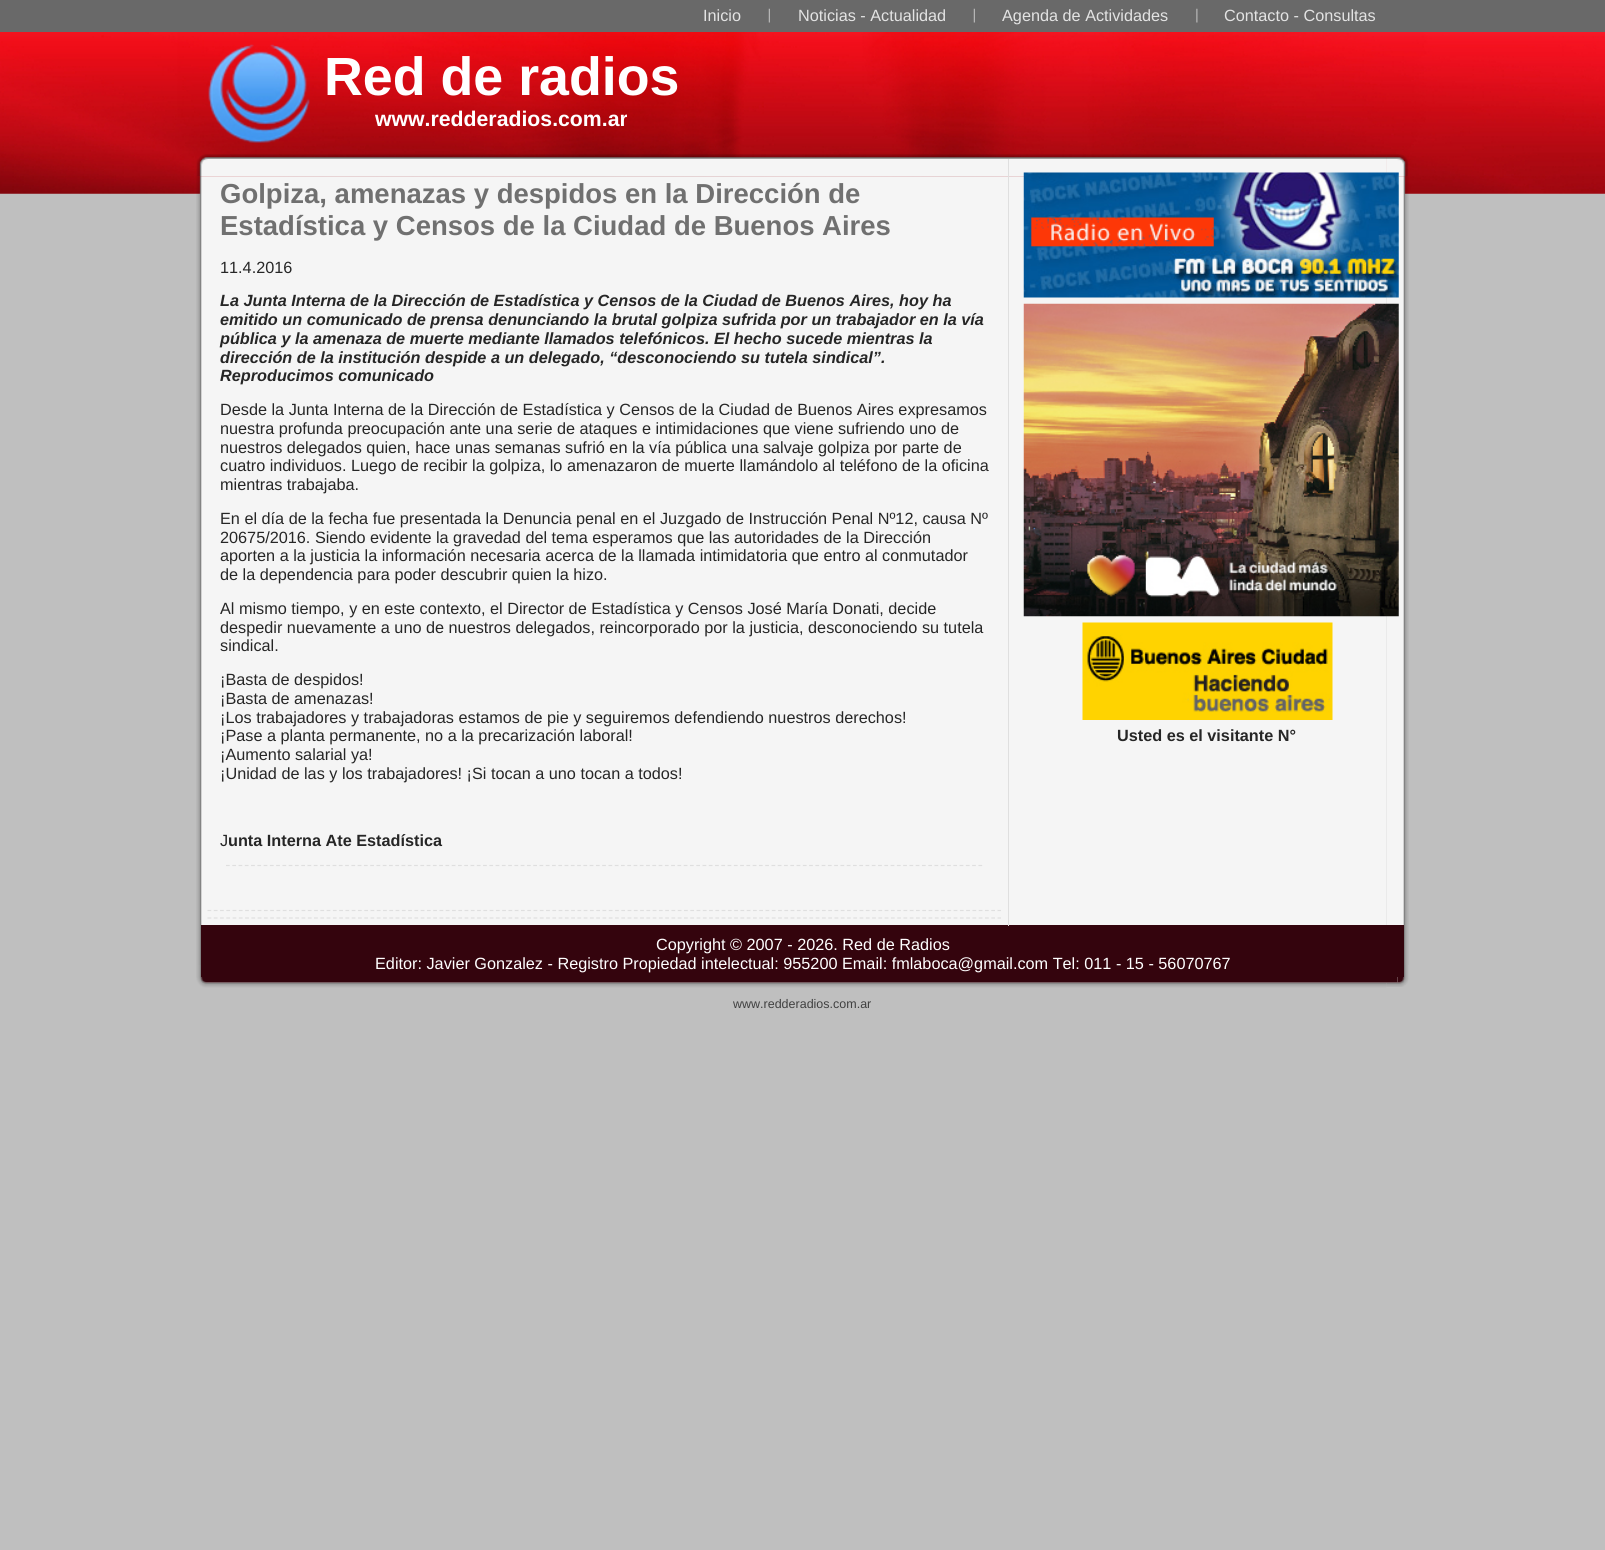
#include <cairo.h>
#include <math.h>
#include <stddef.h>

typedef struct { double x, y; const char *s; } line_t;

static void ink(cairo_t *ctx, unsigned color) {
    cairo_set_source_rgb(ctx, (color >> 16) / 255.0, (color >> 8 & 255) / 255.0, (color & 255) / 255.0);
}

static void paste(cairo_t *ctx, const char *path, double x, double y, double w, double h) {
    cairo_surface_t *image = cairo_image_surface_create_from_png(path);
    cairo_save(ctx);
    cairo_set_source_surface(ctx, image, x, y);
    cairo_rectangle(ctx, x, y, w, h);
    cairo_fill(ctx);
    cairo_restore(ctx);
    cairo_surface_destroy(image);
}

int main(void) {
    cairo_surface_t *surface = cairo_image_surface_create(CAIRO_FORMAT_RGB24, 1605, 1550);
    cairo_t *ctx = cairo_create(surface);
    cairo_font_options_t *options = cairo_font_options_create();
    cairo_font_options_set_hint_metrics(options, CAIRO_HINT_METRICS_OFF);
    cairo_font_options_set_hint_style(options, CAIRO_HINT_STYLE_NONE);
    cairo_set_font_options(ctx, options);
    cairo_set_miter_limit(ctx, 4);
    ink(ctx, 0xBFBFBF);
    cairo_paint(ctx);
    ink(ctx, 0x696969);
    cairo_rectangle(ctx, 0, 0, 1605, 32);
    cairo_fill(ctx);
    cairo_select_font_face(ctx, "Liberation Sans", CAIRO_FONT_SLANT_NORMAL, CAIRO_FONT_WEIGHT_NORMAL);
    cairo_set_font_size(ctx, 16.25);
    ink(ctx, 0xE3E3E3);
    cairo_move_to(ctx, 703, 21);
    cairo_show_text(ctx, "Inicio");
    paste(ctx, "media/1.png", 768, 8, 2, 15);
    cairo_move_to(ctx, 798, 21);
    cairo_show_text(ctx, "Noticias - Actualidad");
    paste(ctx, "media/1.png", 973, 8, 2, 15);
    cairo_move_to(ctx, 1002, 21);
    cairo_show_text(ctx, "Agenda de Actividades");
    paste(ctx, "media/2.png", 1196, 8, 2, 15);
    cairo_move_to(ctx, 1224, 21);
    cairo_show_text(ctx, "Contacto - Consultas");
    paste(ctx, "media/3.png", 0, 32, 1605, 162);
    paste(ctx, "media/4.png", 208, 44, 102, 99);
    cairo_select_font_face(ctx, "Liberation Sans", CAIRO_FONT_SLANT_NORMAL, CAIRO_FONT_WEIGHT_BOLD);
    cairo_set_font_size(ctx, 53.75);
    ink(ctx, 0xFFFFFF);
    cairo_move_to(ctx, 324, 95);
    cairo_show_text(ctx, "Red de radios");
    cairo_set_font_size(ctx, 21.25);
    cairo_move_to(ctx, 375, 126);
    cairo_show_text(ctx, "www.redderadios.com.ar");
    paste(ctx, "media/5.png", 196, 154, 1191, 834);
    paste(ctx, "media/6.png", 196, 154, 1191, 23);
    paste(ctx, "media/9.png", 196, 176, 1191, 789);
    paste(ctx, "media/10.png", 1386, 176, 23, 789);
    paste(ctx, "media/7.png", 1386, 154, 23, 833);
    paste(ctx, "media/8.png", 1386, 154, 22, 23);
    cairo_set_font_size(ctx, 27.5);
    ink(ctx, 0x707070);
    cairo_move_to(ctx, 220, 203);
    cairo_show_text(ctx, "Golpiza, amenazas y despidos en la Dirección de");
    cairo_move_to(ctx, 220, 235);
    cairo_show_text(ctx, "Estadística y Censos de la Ciudad de Buenos Aires");
    cairo_select_font_face(ctx, "Liberation Sans", CAIRO_FONT_SLANT_NORMAL, CAIRO_FONT_WEIGHT_NORMAL);
    cairo_set_font_size(ctx, 16.25);
    ink(ctx, 0x262626);
    cairo_move_to(ctx, 220, 273);
    cairo_show_text(ctx, "11.4.2016");
    cairo_select_font_face(ctx, "Liberation Sans", CAIRO_FONT_SLANT_ITALIC, CAIRO_FONT_WEIGHT_BOLD);
    {
        static const line_t items[] = {
            {220, 306, "La Junta Interna de la Dirección de Estadística y Censos de la Ciudad de Buenos Aires, hoy ha"},
            {220, 325, "emitido un comunicado de prensa denunciando la brutal golpiza sufrida por un trabajador en la vía"},
            {220, 344, "pública y la amenaza de muerte mediante llamados telefónicos. El hecho sucede mientras la"},
            {220, 363, "dirección de la institución despide a un delegado, “desconociendo su tutela sindical”."},
            {220, 381, "Reproducimos comunicado"},
        };
        for (size_t i = 0; i < sizeof items / sizeof *items; i++) {
            cairo_move_to(ctx, items[i].x, items[i].y);
            cairo_show_text(ctx, items[i].s);
        }
    }
    cairo_select_font_face(ctx, "Liberation Sans", CAIRO_FONT_SLANT_NORMAL, CAIRO_FONT_WEIGHT_NORMAL);
    {
        static const line_t items[] = {
            {220, 415, "Desde la Junta Interna de la Dirección de Estadística y Censos de la Ciudad de Buenos Aires expresamos"},
            {220, 434, "nuestra profunda preocupación ante una serie de ataques e intimidaciones que viene sufriendo uno de"},
            {220, 453, "nuestros delegados quien, hace unas semanas sufrió en la vía pública una salvaje golpiza por parte de"},
            {220, 471, "cuatro individuos. Luego de recibir la golpiza, lo amenazaron de muerte llamándolo al teléfono de la oficina"},
            {220, 490, "mientras trabajaba."},
            {220, 524, "En el día de la fecha fue presentada la Denuncia penal en el Juzgado de Instrucción Penal Nº12, causa Nº"},
            {220, 543, "20675/2016. Siendo evidente la gravedad del tema esperamos que las autoridades de la Dirección"},
            {220, 561, "aporten a la justicia la información necesaria acerca de la llamada intimidatoria que entro al conmutador"},
            {220, 580, "de la dependencia para poder descubrir quien la hizo."},
            {220, 614, "Al mismo tiempo, y en este contexto, el Director de Estadística y Censos José María Donati, decide"},
            {220, 633, "despedir nuevamente a uno de nuestros delegados, reincorporado por la justicia, desconociendo su tutela"},
            {220, 651, "sindical."},
            {220, 685, "¡Basta de despidos!"},
            {220, 704, "¡Basta de amenazas!"},
            {220, 723, "¡Los trabajadores y trabajadoras estamos de pie y seguiremos defendiendo nuestros derechos!"},
            {220, 741, "¡Pase a planta permanente, no a la precarización laboral!"},
            {220, 760, "¡Aumento salarial ya!"},
            {220, 779, "¡Unidad de las y los trabajadores! ¡Si tocan a uno tocan a todos!"},
            {220, 846, "J"},
        };
        for (size_t i = 0; i < sizeof items / sizeof *items; i++) {
            cairo_move_to(ctx, items[i].x, items[i].y);
            cairo_show_text(ctx, items[i].s);
        }
    }
    cairo_select_font_face(ctx, "Liberation Sans", CAIRO_FONT_SLANT_NORMAL, CAIRO_FONT_WEIGHT_BOLD);
    cairo_move_to(ctx, 228, 846);
    cairo_show_text(ctx, "unta Interna Ate Estadística");
    cairo_new_path(ctx);
    cairo_move_to(ctx, 226, 865.5);
    cairo_line_to(ctx, 982.5, 865.5);
    ink(ctx, 0xDFDFDF);
    cairo_set_line_width(ctx, 1.2);
    cairo_set_dash(ctx, (double[]){3.75, 2.52}, 2, 0);
    cairo_stroke(ctx);
    cairo_new_path(ctx);
    cairo_move_to(ctx, 207.5, 910.5);
    cairo_line_to(ctx, 1001, 910.5);
    cairo_stroke(ctx);
    cairo_new_path(ctx);
    cairo_move_to(ctx, 207.5, 918);
    cairo_line_to(ctx, 1001, 918);
    cairo_stroke(ctx);
    ink(ctx, 0x34040D);
    cairo_rectangle(ctx, 201, 925, 1203, 52);
    cairo_fill(ctx);
    ink(ctx, 0xDFDFDF);
    cairo_rectangle(ctx, 1008, 159, 1, 767);
    cairo_fill(ctx);
    paste(ctx, "media/11.png", 1023, 172, 376, 126);
    paste(ctx, "media/12.png", 1023, 303, 376, 314);
    paste(ctx, "media/13.png", 1082, 622, 251, 98);
    ink(ctx, 0x262626);
    cairo_move_to(ctx, 1117, 741);
    cairo_show_text(ctx, "Usted es el visitante N°");
    cairo_select_font_face(ctx, "Liberation Sans", CAIRO_FONT_SLANT_NORMAL, CAIRO_FONT_WEIGHT_NORMAL);
    ink(ctx, 0xFFFFFF);
    cairo_move_to(ctx, 656, 950);
    cairo_show_text(ctx, "Copyright © 2007 - 2026. Red de Radios");
    cairo_move_to(ctx, 375, 969);
    cairo_show_text(ctx, "Editor: Javier Gonzalez - Registro Propiedad intelectual: 955200 Email: fmlaboca@gmail.com Tel: 011 - 15 - 56070767");
    paste(ctx, "media/14.png", 201, 977, 1197, 6);
    paste(ctx, "media/15.png", 1397, 977, 7, 6);
    cairo_set_font_size(ctx, 12.5);
    ink(ctx, 0x404040);
    cairo_move_to(ctx, 733, 1008);
    cairo_show_text(ctx, "www.redderadios.com.ar");
    cairo_surface_write_to_png(surface, "image.png");
    cairo_font_options_destroy(options);
    cairo_destroy(ctx);
    cairo_surface_destroy(surface);
    return 0;
}
